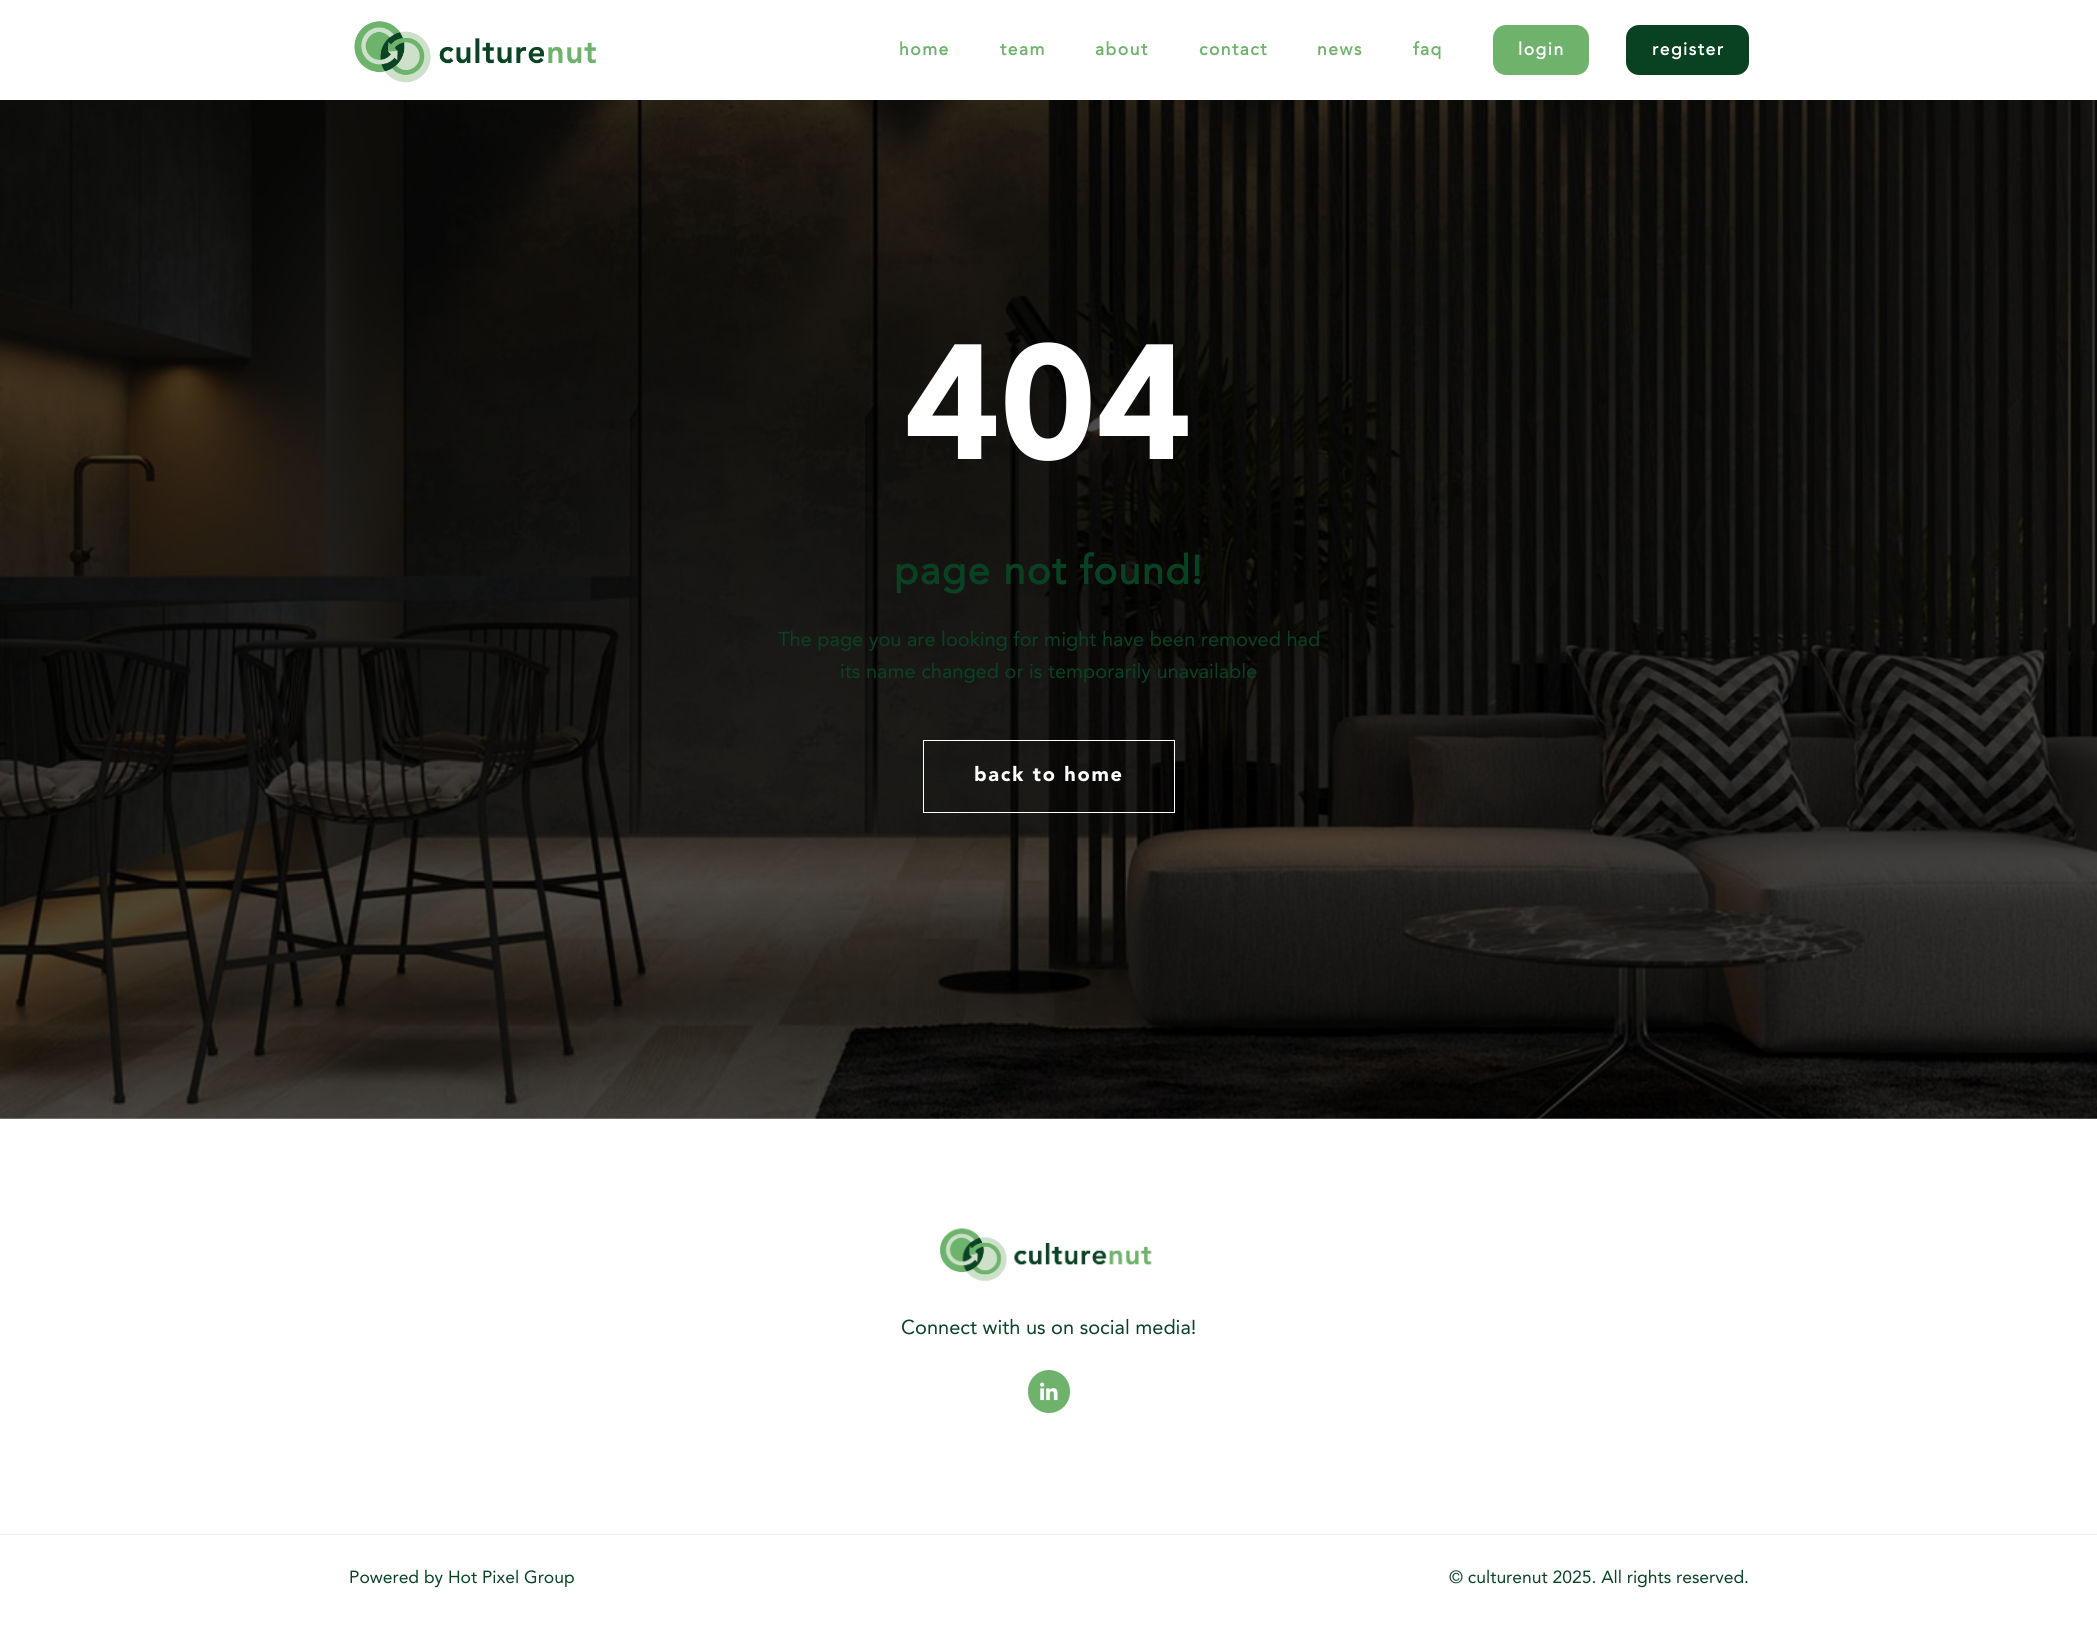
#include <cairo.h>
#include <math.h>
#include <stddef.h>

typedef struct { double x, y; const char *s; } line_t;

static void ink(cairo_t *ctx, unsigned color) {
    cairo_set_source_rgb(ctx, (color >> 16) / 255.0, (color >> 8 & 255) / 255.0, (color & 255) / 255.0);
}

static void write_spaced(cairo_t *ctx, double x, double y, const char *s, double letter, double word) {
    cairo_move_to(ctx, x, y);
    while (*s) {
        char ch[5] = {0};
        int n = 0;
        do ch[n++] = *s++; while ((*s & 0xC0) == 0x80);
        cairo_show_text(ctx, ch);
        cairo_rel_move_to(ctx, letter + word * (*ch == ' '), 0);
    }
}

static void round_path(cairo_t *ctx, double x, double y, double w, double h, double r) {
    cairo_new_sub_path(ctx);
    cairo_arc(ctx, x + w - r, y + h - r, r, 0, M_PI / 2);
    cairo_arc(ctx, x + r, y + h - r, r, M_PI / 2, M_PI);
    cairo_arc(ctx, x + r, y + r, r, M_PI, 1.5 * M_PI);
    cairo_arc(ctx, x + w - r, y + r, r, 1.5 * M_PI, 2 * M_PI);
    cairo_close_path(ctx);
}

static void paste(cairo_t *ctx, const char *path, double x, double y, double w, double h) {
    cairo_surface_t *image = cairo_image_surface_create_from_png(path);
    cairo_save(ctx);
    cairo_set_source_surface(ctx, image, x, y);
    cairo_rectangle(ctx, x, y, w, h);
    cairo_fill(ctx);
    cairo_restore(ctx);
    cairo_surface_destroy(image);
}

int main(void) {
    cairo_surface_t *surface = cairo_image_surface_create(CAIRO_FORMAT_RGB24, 2097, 1644);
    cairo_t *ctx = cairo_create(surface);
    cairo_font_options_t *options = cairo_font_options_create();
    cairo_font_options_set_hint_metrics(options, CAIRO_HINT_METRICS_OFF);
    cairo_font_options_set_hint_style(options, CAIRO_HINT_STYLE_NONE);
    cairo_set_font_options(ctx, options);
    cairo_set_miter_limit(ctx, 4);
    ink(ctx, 0xFFFFFF);
    cairo_paint(ctx);
    paste(ctx, "media/1.png", 354, 21, 242, 62);
    cairo_select_font_face(ctx, "Avenir", CAIRO_FONT_SLANT_NORMAL, CAIRO_FONT_WEIGHT_BOLD);
    cairo_set_font_size(ctx, 17.5);
    ink(ctx, 0x6EB26B);
    {
        static const line_t items[] = {
            {899, 55, "home"},
            {1000, 55, "team"},
            {1095, 55, "about"},
            {1199, 55, "contact"},
            {1317, 55, "news"},
            {1413, 55, "faq"},
        };
        for (size_t i = 0; i < sizeof items / sizeof *items; i++) {
            write_spaced(ctx, items[i].x, items[i].y, items[i].s, 1.5, 0);
        }
    }
    round_path(ctx, 1493, 25, 96, 50, 13);
    cairo_fill(ctx);
    ink(ctx, 0xFFFFFF);
    write_spaced(ctx, 1518, 55, "login", 1.5, 0);
    ink(ctx, 0x084223);
    round_path(ctx, 1626, 25, 123, 50, 13);
    cairo_fill(ctx);
    ink(ctx, 0xFFFFFF);
    write_spaced(ctx, 1652, 55, "register", 1.5, 0);
    paste(ctx, "media/2.png", 0, 100, 2097, 1019);
    cairo_select_font_face(ctx, "Avenir Black", CAIRO_FONT_SLANT_NORMAL, CAIRO_FONT_WEIGHT_NORMAL);
    cairo_set_font_size(ctx, 162);
    cairo_move_to(ctx, 904, 459);
    cairo_show_text(ctx, "404");
    cairo_select_font_face(ctx, "Avenir", CAIRO_FONT_SLANT_NORMAL, CAIRO_FONT_WEIGHT_BOLD);
    cairo_set_font_size(ctx, 40);
    ink(ctx, 0x084223);
    write_spaced(ctx, 894, 584, "page not found!", 1.25, 0);
    cairo_select_font_face(ctx, "Avenir", CAIRO_FONT_SLANT_NORMAL, CAIRO_FONT_WEIGHT_NORMAL);
    cairo_set_font_size(ctx, 20);
    cairo_move_to(ctx, 778, 646);
    cairo_show_text(ctx, "The page you are looking for might have been removed had");
    cairo_move_to(ctx, 840, 678);
    cairo_show_text(ctx, "its name changed or is temporarily unavailable");
    cairo_rectangle(ctx, 923.5, 740.5, 251, 72);
    ink(ctx, 0xFFFFFF);
    cairo_set_line_width(ctx, 1);
    cairo_stroke(ctx);
    cairo_select_font_face(ctx, "Avenir Black", CAIRO_FONT_SLANT_NORMAL, CAIRO_FONT_WEIGHT_NORMAL);
    write_spaced(ctx, 974, 781, "back to home", 1.75, 0);
    paste(ctx, "media/3.png", 939, 1228, 213, 54);
    cairo_select_font_face(ctx, "Avenir", CAIRO_FONT_SLANT_NORMAL, CAIRO_FONT_WEIGHT_NORMAL);
    ink(ctx, 0x084223);
    cairo_move_to(ctx, 901, 1334);
    cairo_show_text(ctx, "Connect with us on social media!");
    ink(ctx, 0x6EB26B);
    round_path(ctx, 1028, 1370, 42, 43, 21);
    cairo_fill(ctx);
    paste(ctx, "media/4.png", 1040, 1382, 18, 19);
    ink(ctx, 0xEFF1F3);
    cairo_rectangle(ctx, 0, 1534, 2097, 1);
    cairo_fill(ctx);
    cairo_set_font_size(ctx, 17.5);
    ink(ctx, 0x084223);
    cairo_move_to(ctx, 349, 1583);
    cairo_show_text(ctx, "Powered by Hot Pixel Group");
    cairo_move_to(ctx, 1449, 1583);
    cairo_show_text(ctx, "© culturenut 2025. All rights reserved.");
    cairo_surface_write_to_png(surface, "image.png");
    cairo_font_options_destroy(options);
    cairo_destroy(ctx);
    cairo_surface_destroy(surface);
    return 0;
}
